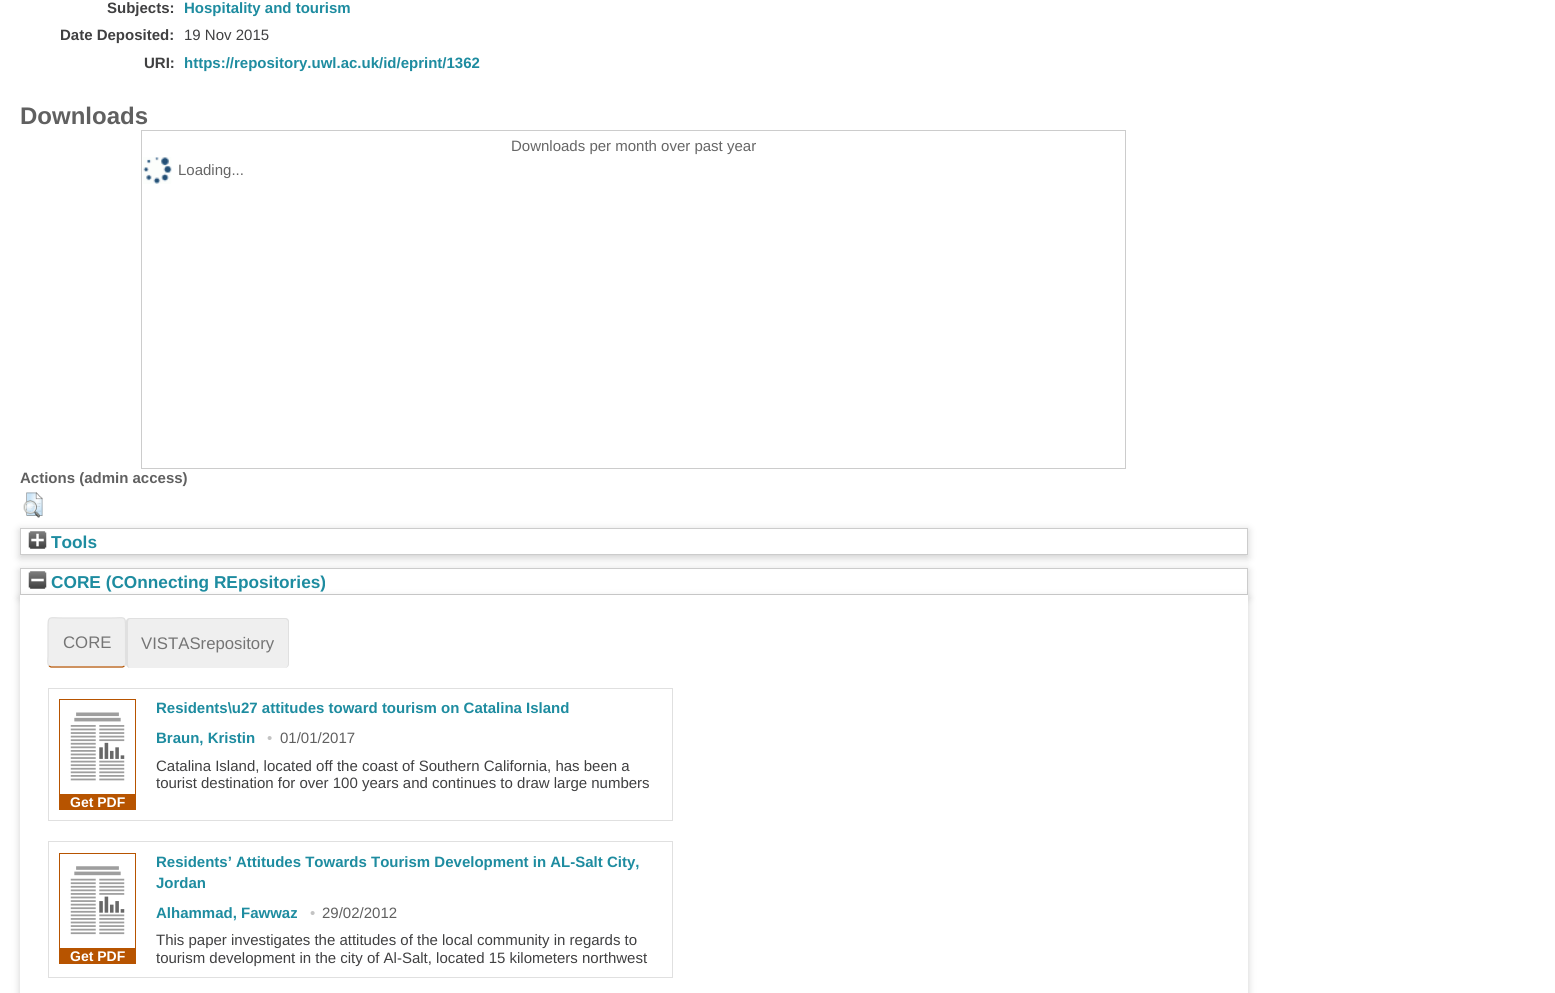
#include <cairo.h>
#include <math.h>
#include <stddef.h>

typedef struct { double x, y; const char *s; } line_t;

static void ink(cairo_t *ctx, unsigned color) {
    cairo_set_source_rgb(ctx, (color >> 16) / 255.0, (color >> 8 & 255) / 255.0, (color & 255) / 255.0);
}

static void round_path(cairo_t *ctx, double x, double y, double w, double h, double r) {
    cairo_new_sub_path(ctx);
    cairo_arc(ctx, x + w - r, y + h - r, r, 0, M_PI / 2);
    cairo_arc(ctx, x + r, y + h - r, r, M_PI / 2, M_PI);
    cairo_arc(ctx, x + r, y + r, r, M_PI, 1.5 * M_PI);
    cairo_arc(ctx, x + w - r, y + r, r, 1.5 * M_PI, 2 * M_PI);
    cairo_close_path(ctx);
}

static void blur_box(cairo_t *ctx, double x, double y, double w, double h, double r, double blur, double alpha) {
    cairo_push_group_with_content(ctx, CAIRO_CONTENT_ALPHA);
    cairo_set_operator(ctx, CAIRO_OPERATOR_SOURCE);
    for (int i = 15; i >= -15 && fmin(w, h) + blur * i / 3 > 0; i -= 2) {
        double e = blur * i / 6;
        cairo_set_source_rgba(ctx, 0, 0, 0, alpha * erfc((i - 1) / 8.5) / 2);
        round_path(ctx, x - e, y - e, w + 2 * e, h + 2 * e, fmax(0, fmin(r + e + blur * .6, fmin(w, h) / 2 + e)));
        cairo_fill(ctx);
    }
    cairo_pattern_t *soft = cairo_pop_group(ctx);
    cairo_mask(ctx, soft);
    cairo_pattern_destroy(soft);
}

static void paste(cairo_t *ctx, const char *path, double x, double y, double w, double h) {
    cairo_surface_t *image = cairo_image_surface_create_from_png(path);
    cairo_save(ctx);
    cairo_set_source_surface(ctx, image, x, y);
    cairo_rectangle(ctx, x, y, w, h);
    cairo_fill(ctx);
    cairo_restore(ctx);
    cairo_surface_destroy(image);
}

int main(void) {
    cairo_surface_t *surface = cairo_image_surface_create(CAIRO_FORMAT_RGB24, 1555, 993);
    cairo_t *ctx = cairo_create(surface);
    cairo_font_options_t *options = cairo_font_options_create();
    cairo_font_options_set_hint_metrics(options, CAIRO_HINT_METRICS_OFF);
    cairo_font_options_set_hint_style(options, CAIRO_HINT_STYLE_NONE);
    cairo_set_font_options(ctx, options);
    cairo_set_miter_limit(ctx, 4);
    ink(ctx, 0xFFFFFF);
    cairo_paint(ctx);
    cairo_select_font_face(ctx, "Liberation Sans", CAIRO_FONT_SLANT_NORMAL, CAIRO_FONT_WEIGHT_BOLD);
    cairo_set_font_size(ctx, 15);
    ink(ctx, 0x404041);
    cairo_move_to(ctx, 107, 13);
    cairo_show_text(ctx, "Subjects:");
    ink(ctx, 0x1E8CA0);
    cairo_move_to(ctx, 184, 13);
    cairo_show_text(ctx, "Hospitality and tourism");
    ink(ctx, 0x404041);
    cairo_move_to(ctx, 60, 40);
    cairo_show_text(ctx, "Date Deposited:");
    cairo_select_font_face(ctx, "Liberation Sans", CAIRO_FONT_SLANT_NORMAL, CAIRO_FONT_WEIGHT_NORMAL);
    cairo_move_to(ctx, 184, 40);
    cairo_show_text(ctx, "19 Nov 2015");
    cairo_select_font_face(ctx, "Liberation Sans", CAIRO_FONT_SLANT_NORMAL, CAIRO_FONT_WEIGHT_BOLD);
    cairo_move_to(ctx, 144, 68);
    cairo_show_text(ctx, "URI:");
    ink(ctx, 0x1E8CA0);
    cairo_move_to(ctx, 184, 68);
    cairo_show_text(ctx, "https://repository.uwl.ac.uk/id/eprint/1362");
    cairo_set_font_size(ctx, 24);
    ink(ctx, 0x606060);
    cairo_move_to(ctx, 20, 124);
    cairo_show_text(ctx, "Downloads");
    cairo_rectangle(ctx, 141.5, 130.5, 984, 338);
    ink(ctx, 0xCCCCCC);
    cairo_set_line_width(ctx, 1);
    cairo_stroke(ctx);
    cairo_select_font_face(ctx, "Liberation Sans", CAIRO_FONT_SLANT_NORMAL, CAIRO_FONT_WEIGHT_NORMAL);
    cairo_set_font_size(ctx, 15);
    ink(ctx, 0x666666);
    cairo_move_to(ctx, 511, 151);
    cairo_show_text(ctx, "Downloads per month over past year");
    paste(ctx, "media/1.png", 143, 157, 29, 27);
    cairo_move_to(ctx, 178, 175);
    cairo_show_text(ctx, "Loading...");
    cairo_select_font_face(ctx, "Liberation Sans", CAIRO_FONT_SLANT_NORMAL, CAIRO_FONT_WEIGHT_BOLD);
    ink(ctx, 0x606060);
    cairo_move_to(ctx, 20, 483);
    cairo_show_text(ctx, "Actions (admin access)");
    ink(ctx, 0x646464);
    blur_box(ctx, 20, 530, 1228, 28, 0, 4, 0.3);
    paste(ctx, "media/2.png", 23, 492, 20, 26);
    ink(ctx, 0xFFFFFF);
    cairo_rectangle(ctx, 20.5, 528.5, 1227, 26);
    cairo_fill_preserve(ctx);
    ink(ctx, 0xCCCCCC);
    cairo_stroke(ctx);
    paste(ctx, "media/3.png", 28, 531, 19, 18);
    cairo_set_font_size(ctx, 17.25);
    ink(ctx, 0x1E8CA0);
    cairo_move_to(ctx, 51, 548);
    cairo_show_text(ctx, "Tools");
    ink(ctx, 0x646464);
    blur_box(ctx, 20, 570, 1228, 28, 0, 4, 0.3);
    ink(ctx, 0xFFFFFF);
    cairo_rectangle(ctx, 20.5, 568.5, 1227, 26);
    cairo_fill_preserve(ctx);
    ink(ctx, 0xCCCCCC);
    cairo_stroke(ctx);
    ink(ctx, 0x646464);
    blur_box(ctx, 20, 598, 1228, 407, 0, 4, 0.3);
    paste(ctx, "media/4.png", 28, 571, 19, 18);
    ink(ctx, 0x1E8CA0);
    cairo_move_to(ctx, 51, 588);
    cairo_show_text(ctx, "CORE (COnnecting REpositories)");
    ink(ctx, 0xFFFFFF);
    cairo_rectangle(ctx, 20, 595, 1228, 398);
    cairo_fill(ctx);
    ink(ctx, 0xEFEFEF);
    round_path(ctx, 48, 618, 78, 50, 4);
    cairo_fill(ctx);
    cairo_new_path(ctx);
    cairo_move_to(ctx, 124.5, 666);
    cairo_line_to(ctx, 122.5, 667);
    cairo_line_to(ctx, 51, 667);
    cairo_line_to(ctx, 49, 666);
    ink(ctx, 0xB75400);
    cairo_set_line_width(ctx, 1.2);
    cairo_stroke(ctx);
    cairo_new_path(ctx);
    cairo_move_to(ctx, 49, 666);
    cairo_curve_to(ctx, 47, 664, 48, 658, 48, 656.5);
    cairo_line_to(ctx, 48, 628.5);
    cairo_curve_to(ctx, 48, 615, 48.5, 618, 63.5, 618);
    cairo_line_to(ctx, 110.5, 618);
    cairo_curve_to(ctx, 125.5, 618, 125.5, 615, 125.5, 628.5);
    cairo_line_to(ctx, 125.5, 656.5);
    cairo_curve_to(ctx, 125.5, 658, 126.5, 664, 124.5, 666);
    ink(ctx, 0xE0E0E0);
    cairo_stroke(ctx);
    cairo_select_font_face(ctx, "Liberation Sans", CAIRO_FONT_SLANT_NORMAL, CAIRO_FONT_WEIGHT_NORMAL);
    cairo_set_font_size(ctx, 16.75);
    ink(ctx, 0x757575);
    cairo_move_to(ctx, 63, 648);
    cairo_show_text(ctx, "CORE");
    ink(ctx, 0xEFEFEF);
    round_path(ctx, 126, 618, 163, 50, 4);
    cairo_fill(ctx);
    ink(ctx, 0xE0E0E0);
    cairo_set_fill_rule(ctx, CAIRO_FILL_RULE_EVEN_ODD);
    cairo_new_path(ctx);
    cairo_move_to(ctx, 130, 618);
    cairo_line_to(ctx, 285, 618);
    cairo_curve_to(ctx, 287, 618, 289, 619, 289, 622);
    cairo_line_to(ctx, 289, 664);
    cairo_curve_to(ctx, 289, 666, 287, 668, 285, 668);
    cairo_line_to(ctx, 130, 668);
    cairo_curve_to(ctx, 128, 668, 126, 666, 126, 664);
    cairo_line_to(ctx, 126, 622);
    cairo_curve_to(ctx, 126, 619, 128, 618, 130, 618);
    cairo_close_path(ctx);
    cairo_move_to(ctx, 130, 619);
    cairo_line_to(ctx, 285, 619);
    cairo_curve_to(ctx, 286, 619, 288, 620, 288, 622);
    cairo_line_to(ctx, 288, 664);
    cairo_curve_to(ctx, 288, 666, 286, 668, 285, 668);
    cairo_line_to(ctx, 130, 668);
    cairo_curve_to(ctx, 129, 668, 128, 666, 128, 664);
    cairo_line_to(ctx, 128, 622);
    cairo_curve_to(ctx, 128, 620, 129, 619, 130, 619);
    cairo_close_path(ctx);
    cairo_fill(ctx);
    ink(ctx, 0x757575);
    cairo_move_to(ctx, 141, 649);
    cairo_show_text(ctx, "VISTASrepository");
    cairo_rectangle(ctx, 48.5, 688.5, 624, 132);
    ink(ctx, 0xE0E0E0);
    cairo_set_line_width(ctx, 1);
    cairo_stroke(ctx);
    cairo_select_font_face(ctx, "Liberation Sans", CAIRO_FONT_SLANT_NORMAL, CAIRO_FONT_WEIGHT_BOLD);
    cairo_set_font_size(ctx, 15);
    ink(ctx, 0x1E8CA0);
    cairo_move_to(ctx, 156, 713);
    cairo_show_text(ctx, "Residents\\u27 attitudes toward tourism on Catalina Island");
    cairo_move_to(ctx, 156, 743);
    cairo_show_text(ctx, "Braun, Kristin");
    cairo_select_font_face(ctx, "Liberation Sans", CAIRO_FONT_SLANT_NORMAL, CAIRO_FONT_WEIGHT_NORMAL);
    ink(ctx, 0xC3C3C3);
    cairo_move_to(ctx, 267, 743);
    cairo_show_text(ctx, "•");
    ink(ctx, 0x606060);
    cairo_move_to(ctx, 280, 743);
    cairo_show_text(ctx, "01/01/2017");
    ink(ctx, 0x404041);
    cairo_move_to(ctx, 156, 771);
    cairo_show_text(ctx, "Catalina Island, located off the coast of Southern California, has been a");
    cairo_move_to(ctx, 156, 788);
    cairo_show_text(ctx, "tourist destination for over 100 years and continues to draw large numbers");
    cairo_rectangle(ctx, 59.5, 699.5, 76, 95);
    ink(ctx, 0xB75400);
    cairo_stroke(ctx);
    paste(ctx, "media/5.png", 70, 712, 55, 69);
    cairo_rectangle(ctx, 59, 795, 77, 15);
    cairo_fill(ctx);
    cairo_select_font_face(ctx, "Liberation Sans", CAIRO_FONT_SLANT_NORMAL, CAIRO_FONT_WEIGHT_BOLD);
    cairo_set_font_size(ctx, 14);
    ink(ctx, 0xFFFFFF);
    cairo_move_to(ctx, 70, 807);
    cairo_show_text(ctx, "Get PDF");
    cairo_rectangle(ctx, 48.5, 841.5, 624, 136);
    ink(ctx, 0xE0E0E0);
    cairo_stroke(ctx);
    cairo_rectangle(ctx, 59.5, 853.5, 76, 95);
    ink(ctx, 0xB75400);
    cairo_stroke(ctx);
    paste(ctx, "media/6.png", 70, 866, 55, 69);
    cairo_rectangle(ctx, 59, 949, 77, 15);
    cairo_fill(ctx);
    ink(ctx, 0xFFFFFF);
    cairo_move_to(ctx, 70, 961);
    cairo_show_text(ctx, "Get PDF");
    cairo_set_font_size(ctx, 15);
    ink(ctx, 0x1E8CA0);
    {
        static const line_t items[] = {
            {156, 867, "Residents’ Attitudes Towards Tourism Development in AL-Salt City,"},
            {156, 888, "Jordan"},
            {156, 918, "Alhammad, Fawwaz"},
        };
        for (size_t i = 0; i < sizeof items / sizeof *items; i++) {
            cairo_move_to(ctx, items[i].x, items[i].y);
            cairo_show_text(ctx, items[i].s);
        }
    }
    cairo_select_font_face(ctx, "Liberation Sans", CAIRO_FONT_SLANT_NORMAL, CAIRO_FONT_WEIGHT_NORMAL);
    ink(ctx, 0xC3C3C3);
    cairo_move_to(ctx, 310, 918);
    cairo_show_text(ctx, "•");
    ink(ctx, 0x606060);
    cairo_move_to(ctx, 322, 918);
    cairo_show_text(ctx, "29/02/2012");
    ink(ctx, 0x404041);
    cairo_move_to(ctx, 156, 945);
    cairo_show_text(ctx, "This paper investigates the attitudes of the local community in regards to");
    cairo_move_to(ctx, 156, 963);
    cairo_show_text(ctx, "tourism development in the city of Al-Salt, located 15 kilometers northwest");
    cairo_surface_write_to_png(surface, "image.png");
    cairo_font_options_destroy(options);
    cairo_destroy(ctx);
    cairo_surface_destroy(surface);
    return 0;
}
